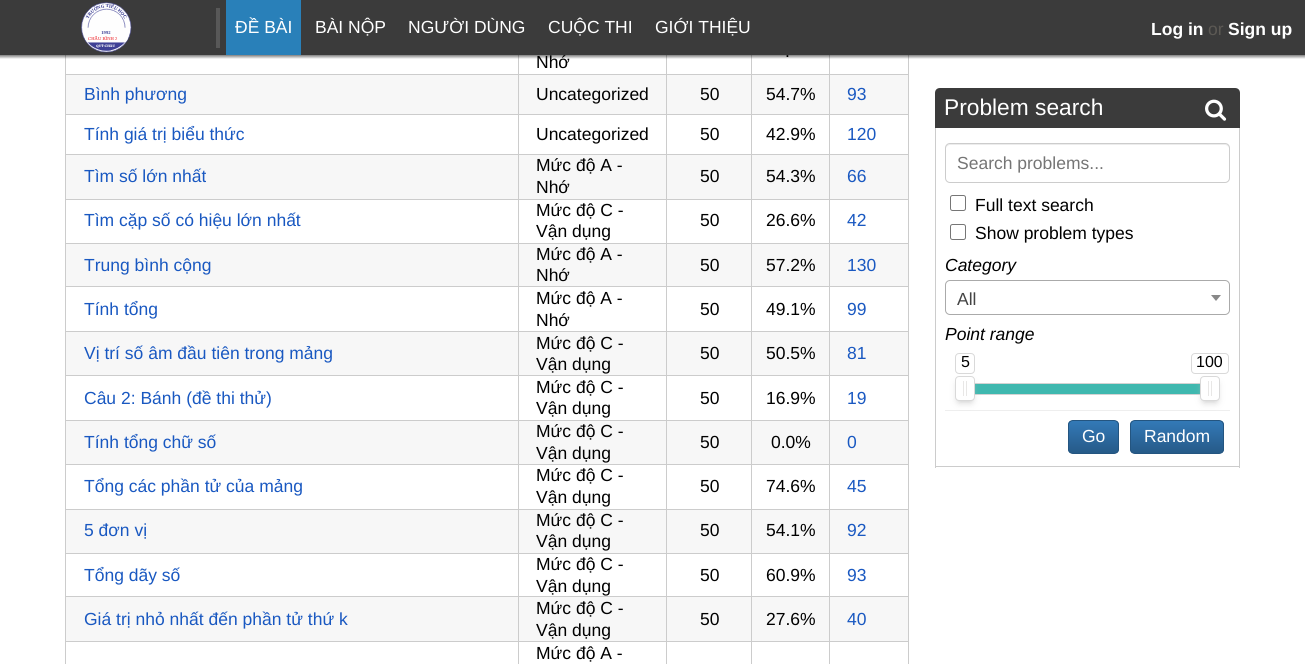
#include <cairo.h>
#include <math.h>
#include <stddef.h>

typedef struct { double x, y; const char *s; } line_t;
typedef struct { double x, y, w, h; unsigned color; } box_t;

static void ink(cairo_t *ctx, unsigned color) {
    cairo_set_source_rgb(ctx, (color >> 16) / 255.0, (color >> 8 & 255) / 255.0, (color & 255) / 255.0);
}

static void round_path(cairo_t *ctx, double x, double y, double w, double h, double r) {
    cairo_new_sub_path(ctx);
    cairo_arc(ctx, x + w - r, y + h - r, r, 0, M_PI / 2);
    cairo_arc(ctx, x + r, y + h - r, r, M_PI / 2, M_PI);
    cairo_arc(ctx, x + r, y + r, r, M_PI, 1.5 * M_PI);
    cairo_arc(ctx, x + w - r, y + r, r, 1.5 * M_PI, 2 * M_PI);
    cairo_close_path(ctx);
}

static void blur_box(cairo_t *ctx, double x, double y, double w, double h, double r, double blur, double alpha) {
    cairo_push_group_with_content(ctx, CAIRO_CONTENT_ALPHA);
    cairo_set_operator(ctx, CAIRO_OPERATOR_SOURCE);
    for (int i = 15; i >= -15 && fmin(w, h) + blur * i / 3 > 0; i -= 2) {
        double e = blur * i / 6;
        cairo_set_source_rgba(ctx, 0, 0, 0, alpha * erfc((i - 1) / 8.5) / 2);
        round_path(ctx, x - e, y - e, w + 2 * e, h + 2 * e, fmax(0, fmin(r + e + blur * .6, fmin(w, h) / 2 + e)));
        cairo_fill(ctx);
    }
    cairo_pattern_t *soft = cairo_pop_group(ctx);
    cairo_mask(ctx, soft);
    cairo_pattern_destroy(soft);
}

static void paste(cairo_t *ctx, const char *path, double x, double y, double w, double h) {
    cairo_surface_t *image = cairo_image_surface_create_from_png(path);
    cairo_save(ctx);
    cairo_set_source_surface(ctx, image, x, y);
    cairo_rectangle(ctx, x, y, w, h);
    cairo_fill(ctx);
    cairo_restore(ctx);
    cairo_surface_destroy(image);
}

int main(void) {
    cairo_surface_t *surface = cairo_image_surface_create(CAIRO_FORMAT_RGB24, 1305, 664);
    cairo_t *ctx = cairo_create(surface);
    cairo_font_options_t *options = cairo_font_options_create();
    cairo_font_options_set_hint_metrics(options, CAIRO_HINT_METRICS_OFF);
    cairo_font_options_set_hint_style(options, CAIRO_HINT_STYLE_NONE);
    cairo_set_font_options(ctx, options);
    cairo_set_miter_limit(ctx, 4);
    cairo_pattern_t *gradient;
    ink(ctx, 0xFFFFFF);
    cairo_paint(ctx);
    ink(ctx, 0x3B3B3B);
    cairo_rectangle(ctx, 0, 0, 1305, 55);
    cairo_fill(ctx);
    paste(ctx, "media/1.png", 81, 2, 51, 51);
    ink(ctx, 0x585858);
    cairo_rectangle(ctx, 216, 8, 4, 40);
    cairo_fill(ctx);
    ink(ctx, 0x2980B9);
    cairo_rectangle(ctx, 226, 0, 75, 55);
    cairo_fill(ctx);
    cairo_select_font_face(ctx, "Liberation Sans", CAIRO_FONT_SLANT_NORMAL, CAIRO_FONT_WEIGHT_NORMAL);
    cairo_set_font_size(ctx, 17.5);
    ink(ctx, 0xFFFFFF);
    {
        static const line_t items[] = {
            {235, 33, "ĐỀ BÀI"},
            {315, 33, "BÀI NỘP"},
            {408, 33, "NGƯỜI DÙNG"},
            {548, 33, "CUỘC THI"},
            {655, 33, "GIỚI THIỆU"},
        };
        for (size_t i = 0; i < sizeof items / sizeof *items; i++) {
            cairo_move_to(ctx, items[i].x, items[i].y);
            cairo_show_text(ctx, items[i].s);
        }
    }
    cairo_select_font_face(ctx, "Liberation Sans", CAIRO_FONT_SLANT_NORMAL, CAIRO_FONT_WEIGHT_BOLD);
    cairo_move_to(ctx, 1151, 35);
    cairo_show_text(ctx, "Log in");
    cairo_select_font_face(ctx, "Liberation Sans", CAIRO_FONT_SLANT_NORMAL, CAIRO_FONT_WEIGHT_NORMAL);
    ink(ctx, 0x5C5954);
    cairo_move_to(ctx, 1208, 35);
    cairo_show_text(ctx, "or");
    cairo_select_font_face(ctx, "Liberation Sans", CAIRO_FONT_SLANT_NORMAL, CAIRO_FONT_WEIGHT_BOLD);
    ink(ctx, 0xFFFFFF);
    cairo_move_to(ctx, 1228, 35);
    cairo_show_text(ctx, "Sign up");
    {
        static const box_t items[] = {
            {518, 55, 1, 19, 0xCCCCCC},
            {65, 55, 1, 19, 0xCCCCCC},
            {666, 55, 1, 19, 0xCCCCCC},
        };
        for (size_t i = 0; i < sizeof items / sizeof *items; i++) {
            ink(ctx, items[i].color);
            cairo_rectangle(ctx, items[i].x, items[i].y, items[i].w, items[i].h);
            cairo_fill(ctx);
        }
    }
    cairo_select_font_face(ctx, "Liberation Sans", CAIRO_FONT_SLANT_NORMAL, CAIRO_FONT_WEIGHT_NORMAL);
    ink(ctx, 0x000000);
    cairo_move_to(ctx, 536, 68);
    cairo_show_text(ctx, "Nhớ");
    ink(ctx, 0xCCCCCC);
    cairo_rectangle(ctx, 751, 55, 1, 19);
    cairo_fill(ctx);
    cairo_rectangle(ctx, 829, 55, 1, 19);
    cairo_fill(ctx);
    ink(ctx, 0x000000);
    cairo_move_to(ctx, 785, 57);
    cairo_show_text(ctx, ".");
    ink(ctx, 0xCCCCCC);
    cairo_rectangle(ctx, 908, 55, 1, 19);
    cairo_fill(ctx);
    gradient = cairo_pattern_create_linear(653, 55, 653, 59);
    cairo_pattern_add_color_stop_rgba(gradient, 0, 0, 0, 0, 0.5);
    cairo_pattern_add_color_stop_rgba(gradient, 1, 0, 0, 0, 0);
    cairo_set_source(ctx, gradient);
    cairo_pattern_destroy(gradient);
    cairo_rectangle(ctx, 0, 55, 1305, 4);
    cairo_fill(ctx);
    {
        static const box_t items[] = {
            {66, 75, 842, 39, 0xF7F7F7},
            {65, 74, 844, 1, 0xCCCCCC},
            {518, 74, 1, 40, 0xCCCCCC},
            {65, 74, 1, 40, 0xCCCCCC},
        };
        for (size_t i = 0; i < sizeof items / sizeof *items; i++) {
            ink(ctx, items[i].color);
            cairo_rectangle(ctx, items[i].x, items[i].y, items[i].w, items[i].h);
            cairo_fill(ctx);
        }
    }
    ink(ctx, 0x1958C1);
    cairo_move_to(ctx, 84, 100);
    cairo_show_text(ctx, "Bình phương");
    ink(ctx, 0xCCCCCC);
    cairo_rectangle(ctx, 666, 74, 1, 40);
    cairo_fill(ctx);
    ink(ctx, 0x000000);
    cairo_move_to(ctx, 536, 100);
    cairo_show_text(ctx, "Uncategorized");
    ink(ctx, 0xCCCCCC);
    cairo_rectangle(ctx, 751, 74, 1, 40);
    cairo_fill(ctx);
    ink(ctx, 0x000000);
    cairo_move_to(ctx, 700, 100);
    cairo_show_text(ctx, "50");
    ink(ctx, 0xCCCCCC);
    cairo_rectangle(ctx, 829, 74, 1, 40);
    cairo_fill(ctx);
    ink(ctx, 0x000000);
    cairo_move_to(ctx, 766, 100);
    cairo_show_text(ctx, "54.7%");
    ink(ctx, 0xCCCCCC);
    cairo_rectangle(ctx, 908, 74, 1, 40);
    cairo_fill(ctx);
    ink(ctx, 0x1958C1);
    cairo_move_to(ctx, 847, 100);
    cairo_show_text(ctx, "93");
    {
        static const box_t items[] = {
            {65, 114, 844, 1, 0xCCCCCC},
            {518, 114, 1, 40, 0xCCCCCC},
            {65, 114, 1, 40, 0xCCCCCC},
        };
        for (size_t i = 0; i < sizeof items / sizeof *items; i++) {
            ink(ctx, items[i].color);
            cairo_rectangle(ctx, items[i].x, items[i].y, items[i].w, items[i].h);
            cairo_fill(ctx);
        }
    }
    ink(ctx, 0x1958C1);
    cairo_move_to(ctx, 84, 140);
    cairo_show_text(ctx, "Tính giá trị biểu thức");
    ink(ctx, 0xCCCCCC);
    cairo_rectangle(ctx, 666, 114, 1, 40);
    cairo_fill(ctx);
    ink(ctx, 0x000000);
    cairo_move_to(ctx, 536, 140);
    cairo_show_text(ctx, "Uncategorized");
    ink(ctx, 0xCCCCCC);
    cairo_rectangle(ctx, 751, 114, 1, 40);
    cairo_fill(ctx);
    ink(ctx, 0x000000);
    cairo_move_to(ctx, 700, 140);
    cairo_show_text(ctx, "50");
    ink(ctx, 0xCCCCCC);
    cairo_rectangle(ctx, 829, 114, 1, 40);
    cairo_fill(ctx);
    ink(ctx, 0x000000);
    cairo_move_to(ctx, 766, 140);
    cairo_show_text(ctx, "42.9%");
    ink(ctx, 0xCCCCCC);
    cairo_rectangle(ctx, 908, 114, 1, 40);
    cairo_fill(ctx);
    ink(ctx, 0x1958C1);
    cairo_move_to(ctx, 847, 140);
    cairo_show_text(ctx, "120");
    {
        static const box_t items[] = {
            {66, 155, 842, 44, 0xF7F7F7},
            {65, 154, 844, 1, 0xCCCCCC},
            {518, 154, 1, 45, 0xCCCCCC},
            {65, 154, 1, 45, 0xCCCCCC},
        };
        for (size_t i = 0; i < sizeof items / sizeof *items; i++) {
            ink(ctx, items[i].color);
            cairo_rectangle(ctx, items[i].x, items[i].y, items[i].w, items[i].h);
            cairo_fill(ctx);
        }
    }
    ink(ctx, 0x1958C1);
    cairo_move_to(ctx, 84, 182);
    cairo_show_text(ctx, "Tìm số lớn nhất");
    ink(ctx, 0xCCCCCC);
    cairo_rectangle(ctx, 666, 154, 1, 45);
    cairo_fill(ctx);
    ink(ctx, 0x000000);
    cairo_move_to(ctx, 536, 171);
    cairo_show_text(ctx, "Mức độ A -");
    cairo_move_to(ctx, 536, 193);
    cairo_show_text(ctx, "Nhớ");
    ink(ctx, 0xCCCCCC);
    cairo_rectangle(ctx, 751, 154, 1, 45);
    cairo_fill(ctx);
    ink(ctx, 0x000000);
    cairo_move_to(ctx, 700, 182);
    cairo_show_text(ctx, "50");
    ink(ctx, 0xCCCCCC);
    cairo_rectangle(ctx, 829, 154, 1, 45);
    cairo_fill(ctx);
    ink(ctx, 0x000000);
    cairo_move_to(ctx, 766, 182);
    cairo_show_text(ctx, "54.3%");
    ink(ctx, 0xCCCCCC);
    cairo_rectangle(ctx, 908, 154, 1, 45);
    cairo_fill(ctx);
    ink(ctx, 0x1958C1);
    cairo_move_to(ctx, 847, 182);
    cairo_show_text(ctx, "66");
    {
        static const box_t items[] = {
            {65, 199, 844, 1, 0xCCCCCC},
            {518, 199, 1, 44, 0xCCCCCC},
            {65, 199, 1, 44, 0xCCCCCC},
        };
        for (size_t i = 0; i < sizeof items / sizeof *items; i++) {
            ink(ctx, items[i].color);
            cairo_rectangle(ctx, items[i].x, items[i].y, items[i].w, items[i].h);
            cairo_fill(ctx);
        }
    }
    ink(ctx, 0x1958C1);
    cairo_move_to(ctx, 84, 226);
    cairo_show_text(ctx, "Tìm cặp số có hiệu lớn nhất");
    ink(ctx, 0xCCCCCC);
    cairo_rectangle(ctx, 666, 199, 1, 44);
    cairo_fill(ctx);
    ink(ctx, 0x000000);
    cairo_move_to(ctx, 536, 216);
    cairo_show_text(ctx, "Mức độ C -");
    cairo_move_to(ctx, 536, 237);
    cairo_show_text(ctx, "Vận dụng");
    ink(ctx, 0xCCCCCC);
    cairo_rectangle(ctx, 751, 199, 1, 44);
    cairo_fill(ctx);
    ink(ctx, 0x000000);
    cairo_move_to(ctx, 700, 226);
    cairo_show_text(ctx, "50");
    ink(ctx, 0xCCCCCC);
    cairo_rectangle(ctx, 829, 199, 1, 44);
    cairo_fill(ctx);
    ink(ctx, 0x000000);
    cairo_move_to(ctx, 766, 226);
    cairo_show_text(ctx, "26.6%");
    ink(ctx, 0xCCCCCC);
    cairo_rectangle(ctx, 908, 199, 1, 44);
    cairo_fill(ctx);
    ink(ctx, 0x1958C1);
    cairo_move_to(ctx, 847, 226);
    cairo_show_text(ctx, "42");
    {
        static const box_t items[] = {
            {66, 244, 842, 42, 0xF7F7F7},
            {65, 243, 844, 1, 0xCCCCCC},
            {518, 243, 1, 43, 0xCCCCCC},
            {65, 243, 1, 43, 0xCCCCCC},
        };
        for (size_t i = 0; i < sizeof items / sizeof *items; i++) {
            ink(ctx, items[i].color);
            cairo_rectangle(ctx, items[i].x, items[i].y, items[i].w, items[i].h);
            cairo_fill(ctx);
        }
    }
    ink(ctx, 0x1958C1);
    cairo_move_to(ctx, 84, 271);
    cairo_show_text(ctx, "Trung bình cộng");
    ink(ctx, 0xCCCCCC);
    cairo_rectangle(ctx, 666, 243, 1, 43);
    cairo_fill(ctx);
    ink(ctx, 0x000000);
    cairo_move_to(ctx, 536, 260);
    cairo_show_text(ctx, "Mức độ A -");
    cairo_move_to(ctx, 536, 281);
    cairo_show_text(ctx, "Nhớ");
    ink(ctx, 0xCCCCCC);
    cairo_rectangle(ctx, 751, 243, 1, 43);
    cairo_fill(ctx);
    ink(ctx, 0x000000);
    cairo_move_to(ctx, 700, 271);
    cairo_show_text(ctx, "50");
    ink(ctx, 0xCCCCCC);
    cairo_rectangle(ctx, 829, 243, 1, 43);
    cairo_fill(ctx);
    ink(ctx, 0x000000);
    cairo_move_to(ctx, 766, 271);
    cairo_show_text(ctx, "57.2%");
    ink(ctx, 0xCCCCCC);
    cairo_rectangle(ctx, 908, 243, 1, 43);
    cairo_fill(ctx);
    ink(ctx, 0x1958C1);
    cairo_move_to(ctx, 847, 271);
    cairo_show_text(ctx, "130");
    {
        static const box_t items[] = {
            {65, 286, 844, 1, 0xCCCCCC},
            {518, 286, 1, 45, 0xCCCCCC},
            {65, 286, 1, 45, 0xCCCCCC},
        };
        for (size_t i = 0; i < sizeof items / sizeof *items; i++) {
            ink(ctx, items[i].color);
            cairo_rectangle(ctx, items[i].x, items[i].y, items[i].w, items[i].h);
            cairo_fill(ctx);
        }
    }
    ink(ctx, 0x1958C1);
    cairo_move_to(ctx, 84, 315);
    cairo_show_text(ctx, "Tính tổng");
    ink(ctx, 0xCCCCCC);
    cairo_rectangle(ctx, 666, 286, 1, 45);
    cairo_fill(ctx);
    ink(ctx, 0x000000);
    cairo_move_to(ctx, 536, 304);
    cairo_show_text(ctx, "Mức độ A -");
    cairo_move_to(ctx, 536, 326);
    cairo_show_text(ctx, "Nhớ");
    ink(ctx, 0xCCCCCC);
    cairo_rectangle(ctx, 751, 286, 1, 45);
    cairo_fill(ctx);
    ink(ctx, 0x000000);
    cairo_move_to(ctx, 700, 315);
    cairo_show_text(ctx, "50");
    ink(ctx, 0xCCCCCC);
    cairo_rectangle(ctx, 829, 286, 1, 45);
    cairo_fill(ctx);
    ink(ctx, 0x000000);
    cairo_move_to(ctx, 766, 315);
    cairo_show_text(ctx, "49.1%");
    ink(ctx, 0xCCCCCC);
    cairo_rectangle(ctx, 908, 286, 1, 45);
    cairo_fill(ctx);
    ink(ctx, 0x1958C1);
    cairo_move_to(ctx, 847, 315);
    cairo_show_text(ctx, "99");
    {
        static const box_t items[] = {
            {66, 332, 842, 43, 0xF7F7F7},
            {65, 331, 844, 1, 0xCCCCCC},
            {518, 331, 1, 44, 0xCCCCCC},
            {65, 331, 1, 44, 0xCCCCCC},
        };
        for (size_t i = 0; i < sizeof items / sizeof *items; i++) {
            ink(ctx, items[i].color);
            cairo_rectangle(ctx, items[i].x, items[i].y, items[i].w, items[i].h);
            cairo_fill(ctx);
        }
    }
    ink(ctx, 0x1958C1);
    cairo_move_to(ctx, 84, 359);
    cairo_show_text(ctx, "Vị trí số âm đầu tiên trong mảng");
    ink(ctx, 0xCCCCCC);
    cairo_rectangle(ctx, 666, 331, 1, 44);
    cairo_fill(ctx);
    ink(ctx, 0x000000);
    cairo_move_to(ctx, 536, 349);
    cairo_show_text(ctx, "Mức độ C -");
    cairo_move_to(ctx, 536, 370);
    cairo_show_text(ctx, "Vận dụng");
    ink(ctx, 0xCCCCCC);
    cairo_rectangle(ctx, 751, 331, 1, 44);
    cairo_fill(ctx);
    ink(ctx, 0x000000);
    cairo_move_to(ctx, 700, 359);
    cairo_show_text(ctx, "50");
    ink(ctx, 0xCCCCCC);
    cairo_rectangle(ctx, 829, 331, 1, 44);
    cairo_fill(ctx);
    ink(ctx, 0x000000);
    cairo_move_to(ctx, 766, 359);
    cairo_show_text(ctx, "50.5%");
    ink(ctx, 0xCCCCCC);
    cairo_rectangle(ctx, 908, 331, 1, 44);
    cairo_fill(ctx);
    ink(ctx, 0x1958C1);
    cairo_move_to(ctx, 847, 359);
    cairo_show_text(ctx, "81");
    {
        static const box_t items[] = {
            {65, 375, 844, 1, 0xCCCCCC},
            {518, 375, 1, 45, 0xCCCCCC},
            {65, 375, 1, 45, 0xCCCCCC},
        };
        for (size_t i = 0; i < sizeof items / sizeof *items; i++) {
            ink(ctx, items[i].color);
            cairo_rectangle(ctx, items[i].x, items[i].y, items[i].w, items[i].h);
            cairo_fill(ctx);
        }
    }
    ink(ctx, 0x1958C1);
    cairo_move_to(ctx, 84, 404);
    cairo_show_text(ctx, "Câu 2: Bánh (đề thi thử)");
    ink(ctx, 0xCCCCCC);
    cairo_rectangle(ctx, 666, 375, 1, 45);
    cairo_fill(ctx);
    ink(ctx, 0x000000);
    cairo_move_to(ctx, 536, 393);
    cairo_show_text(ctx, "Mức độ C -");
    cairo_move_to(ctx, 536, 414);
    cairo_show_text(ctx, "Vận dụng");
    ink(ctx, 0xCCCCCC);
    cairo_rectangle(ctx, 751, 375, 1, 45);
    cairo_fill(ctx);
    ink(ctx, 0x000000);
    cairo_move_to(ctx, 700, 404);
    cairo_show_text(ctx, "50");
    ink(ctx, 0xCCCCCC);
    cairo_rectangle(ctx, 829, 375, 1, 45);
    cairo_fill(ctx);
    ink(ctx, 0x000000);
    cairo_move_to(ctx, 766, 404);
    cairo_show_text(ctx, "16.9%");
    ink(ctx, 0xCCCCCC);
    cairo_rectangle(ctx, 908, 375, 1, 45);
    cairo_fill(ctx);
    ink(ctx, 0x1958C1);
    cairo_move_to(ctx, 847, 404);
    cairo_show_text(ctx, "19");
    {
        static const box_t items[] = {
            {66, 421, 842, 43, 0xF7F7F7},
            {65, 420, 844, 1, 0xCCCCCC},
            {518, 420, 1, 44, 0xCCCCCC},
            {65, 420, 1, 44, 0xCCCCCC},
        };
        for (size_t i = 0; i < sizeof items / sizeof *items; i++) {
            ink(ctx, items[i].color);
            cairo_rectangle(ctx, items[i].x, items[i].y, items[i].w, items[i].h);
            cairo_fill(ctx);
        }
    }
    ink(ctx, 0x1958C1);
    cairo_move_to(ctx, 84, 448);
    cairo_show_text(ctx, "Tính tổng chữ số");
    ink(ctx, 0xCCCCCC);
    cairo_rectangle(ctx, 666, 420, 1, 44);
    cairo_fill(ctx);
    ink(ctx, 0x000000);
    cairo_move_to(ctx, 536, 437);
    cairo_show_text(ctx, "Mức độ C -");
    cairo_move_to(ctx, 536, 459);
    cairo_show_text(ctx, "Vận dụng");
    ink(ctx, 0xCCCCCC);
    cairo_rectangle(ctx, 751, 420, 1, 44);
    cairo_fill(ctx);
    ink(ctx, 0x000000);
    cairo_move_to(ctx, 700, 448);
    cairo_show_text(ctx, "50");
    ink(ctx, 0xCCCCCC);
    cairo_rectangle(ctx, 829, 420, 1, 44);
    cairo_fill(ctx);
    ink(ctx, 0x000000);
    cairo_move_to(ctx, 771, 448);
    cairo_show_text(ctx, "0.0%");
    ink(ctx, 0xCCCCCC);
    cairo_rectangle(ctx, 908, 420, 1, 44);
    cairo_fill(ctx);
    ink(ctx, 0x1958C1);
    cairo_move_to(ctx, 847, 448);
    cairo_show_text(ctx, "0");
    {
        static const box_t items[] = {
            {65, 464, 844, 1, 0xCCCCCC},
            {518, 464, 1, 45, 0xCCCCCC},
            {65, 464, 1, 45, 0xCCCCCC},
        };
        for (size_t i = 0; i < sizeof items / sizeof *items; i++) {
            ink(ctx, items[i].color);
            cairo_rectangle(ctx, items[i].x, items[i].y, items[i].w, items[i].h);
            cairo_fill(ctx);
        }
    }
    ink(ctx, 0x1958C1);
    cairo_move_to(ctx, 84, 492);
    cairo_show_text(ctx, "Tổng các phần tử của mảng");
    ink(ctx, 0xCCCCCC);
    cairo_rectangle(ctx, 666, 464, 1, 45);
    cairo_fill(ctx);
    ink(ctx, 0x000000);
    cairo_move_to(ctx, 536, 481);
    cairo_show_text(ctx, "Mức độ C -");
    cairo_move_to(ctx, 536, 503);
    cairo_show_text(ctx, "Vận dụng");
    ink(ctx, 0xCCCCCC);
    cairo_rectangle(ctx, 751, 464, 1, 45);
    cairo_fill(ctx);
    ink(ctx, 0x000000);
    cairo_move_to(ctx, 700, 492);
    cairo_show_text(ctx, "50");
    ink(ctx, 0xCCCCCC);
    cairo_rectangle(ctx, 829, 464, 1, 45);
    cairo_fill(ctx);
    ink(ctx, 0x000000);
    cairo_move_to(ctx, 766, 492);
    cairo_show_text(ctx, "74.6%");
    ink(ctx, 0xCCCCCC);
    cairo_rectangle(ctx, 908, 464, 1, 45);
    cairo_fill(ctx);
    ink(ctx, 0x1958C1);
    cairo_move_to(ctx, 847, 492);
    cairo_show_text(ctx, "45");
    {
        static const box_t items[] = {
            {66, 510, 842, 43, 0xF7F7F7},
            {65, 509, 844, 1, 0xCCCCCC},
            {518, 509, 1, 44, 0xCCCCCC},
            {65, 509, 1, 44, 0xCCCCCC},
        };
        for (size_t i = 0; i < sizeof items / sizeof *items; i++) {
            ink(ctx, items[i].color);
            cairo_rectangle(ctx, items[i].x, items[i].y, items[i].w, items[i].h);
            cairo_fill(ctx);
        }
    }
    ink(ctx, 0x1958C1);
    cairo_move_to(ctx, 84, 536);
    cairo_show_text(ctx, "5 đơn vị");
    ink(ctx, 0xCCCCCC);
    cairo_rectangle(ctx, 666, 509, 1, 44);
    cairo_fill(ctx);
    ink(ctx, 0x000000);
    cairo_move_to(ctx, 536, 526);
    cairo_show_text(ctx, "Mức độ C -");
    cairo_move_to(ctx, 536, 547);
    cairo_show_text(ctx, "Vận dụng");
    ink(ctx, 0xCCCCCC);
    cairo_rectangle(ctx, 751, 509, 1, 44);
    cairo_fill(ctx);
    ink(ctx, 0x000000);
    cairo_move_to(ctx, 700, 536);
    cairo_show_text(ctx, "50");
    ink(ctx, 0xCCCCCC);
    cairo_rectangle(ctx, 829, 509, 1, 44);
    cairo_fill(ctx);
    ink(ctx, 0x000000);
    cairo_move_to(ctx, 766, 536);
    cairo_show_text(ctx, "54.1%");
    ink(ctx, 0xCCCCCC);
    cairo_rectangle(ctx, 908, 509, 1, 44);
    cairo_fill(ctx);
    ink(ctx, 0x1958C1);
    cairo_move_to(ctx, 847, 536);
    cairo_show_text(ctx, "92");
    {
        static const box_t items[] = {
            {65, 553, 844, 1, 0xCCCCCC},
            {518, 553, 1, 43, 0xCCCCCC},
            {65, 553, 1, 43, 0xCCCCCC},
        };
        for (size_t i = 0; i < sizeof items / sizeof *items; i++) {
            ink(ctx, items[i].color);
            cairo_rectangle(ctx, items[i].x, items[i].y, items[i].w, items[i].h);
            cairo_fill(ctx);
        }
    }
    ink(ctx, 0x1958C1);
    cairo_move_to(ctx, 84, 581);
    cairo_show_text(ctx, "Tổng dãy số");
    ink(ctx, 0xCCCCCC);
    cairo_rectangle(ctx, 666, 553, 1, 43);
    cairo_fill(ctx);
    ink(ctx, 0x000000);
    cairo_move_to(ctx, 536, 570);
    cairo_show_text(ctx, "Mức độ C -");
    cairo_move_to(ctx, 536, 592);
    cairo_show_text(ctx, "Vận dụng");
    ink(ctx, 0xCCCCCC);
    cairo_rectangle(ctx, 751, 553, 1, 43);
    cairo_fill(ctx);
    ink(ctx, 0x000000);
    cairo_move_to(ctx, 700, 581);
    cairo_show_text(ctx, "50");
    ink(ctx, 0xCCCCCC);
    cairo_rectangle(ctx, 829, 553, 1, 43);
    cairo_fill(ctx);
    ink(ctx, 0x000000);
    cairo_move_to(ctx, 766, 581);
    cairo_show_text(ctx, "60.9%");
    ink(ctx, 0xCCCCCC);
    cairo_rectangle(ctx, 908, 553, 1, 43);
    cairo_fill(ctx);
    ink(ctx, 0x1958C1);
    cairo_move_to(ctx, 847, 581);
    cairo_show_text(ctx, "93");
    {
        static const box_t items[] = {
            {66, 597, 842, 44, 0xF7F7F7},
            {65, 596, 844, 1, 0xCCCCCC},
            {518, 596, 1, 45, 0xCCCCCC},
            {65, 596, 1, 45, 0xCCCCCC},
        };
        for (size_t i = 0; i < sizeof items / sizeof *items; i++) {
            ink(ctx, items[i].color);
            cairo_rectangle(ctx, items[i].x, items[i].y, items[i].w, items[i].h);
            cairo_fill(ctx);
        }
    }
    ink(ctx, 0x1958C1);
    cairo_move_to(ctx, 84, 625);
    cairo_show_text(ctx, "Giá trị nhỏ nhất đến phần tử thứ k");
    ink(ctx, 0xCCCCCC);
    cairo_rectangle(ctx, 666, 596, 1, 45);
    cairo_fill(ctx);
    ink(ctx, 0x000000);
    cairo_move_to(ctx, 536, 614);
    cairo_show_text(ctx, "Mức độ C -");
    cairo_move_to(ctx, 536, 636);
    cairo_show_text(ctx, "Vận dụng");
    ink(ctx, 0xCCCCCC);
    cairo_rectangle(ctx, 751, 596, 1, 45);
    cairo_fill(ctx);
    ink(ctx, 0x000000);
    cairo_move_to(ctx, 700, 625);
    cairo_show_text(ctx, "50");
    ink(ctx, 0xCCCCCC);
    cairo_rectangle(ctx, 829, 596, 1, 45);
    cairo_fill(ctx);
    ink(ctx, 0x000000);
    cairo_move_to(ctx, 766, 625);
    cairo_show_text(ctx, "27.6%");
    ink(ctx, 0xCCCCCC);
    cairo_rectangle(ctx, 908, 596, 1, 45);
    cairo_fill(ctx);
    ink(ctx, 0x1958C1);
    cairo_move_to(ctx, 847, 625);
    cairo_show_text(ctx, "40");
    {
        static const box_t items[] = {
            {65, 641, 844, 1, 0xCCCCCC},
            {518, 641, 1, 23, 0xCCCCCC},
            {65, 641, 1, 23, 0xCCCCCC},
            {666, 641, 1, 23, 0xCCCCCC},
        };
        for (size_t i = 0; i < sizeof items / sizeof *items; i++) {
            ink(ctx, items[i].color);
            cairo_rectangle(ctx, items[i].x, items[i].y, items[i].w, items[i].h);
            cairo_fill(ctx);
        }
    }
    ink(ctx, 0x000000);
    cairo_move_to(ctx, 536, 659);
    cairo_show_text(ctx, "Mức độ A -");
    {
        static const box_t items[] = {
            {751, 641, 1, 23, 0xCCCCCC},
            {829, 641, 1, 23, 0xCCCCCC},
            {908, 641, 1, 23, 0xCCCCCC},
        };
        for (size_t i = 0; i < sizeof items / sizeof *items; i++) {
            ink(ctx, items[i].color);
            cairo_rectangle(ctx, items[i].x, items[i].y, items[i].w, items[i].h);
            cairo_fill(ctx);
        }
    }
    ink(ctx, 0x3B3B3B);
    cairo_new_path(ctx);
    cairo_move_to(ctx, 940, 88);
    cairo_line_to(ctx, 1235, 88);
    cairo_curve_to(ctx, 1238, 88, 1240, 90, 1240, 93);
    cairo_line_to(ctx, 1240, 128);
    cairo_line_to(ctx, 935, 128);
    cairo_line_to(ctx, 935, 93);
    cairo_curve_to(ctx, 935, 90, 937, 88, 940, 88);
    cairo_close_path(ctx);
    cairo_fill(ctx);
    cairo_set_font_size(ctx, 22.75);
    ink(ctx, 0xFFFFFF);
    cairo_move_to(ctx, 944, 115);
    cairo_show_text(ctx, "Problem search");
    paste(ctx, "media/2.png", 1205, 99, 22, 22);
    {
        static const box_t items[] = {
            {1239, 128, 1, 340, 0xCCCCCC},
            {935, 466, 305, 1, 0xCCCCCC},
            {935, 128, 1, 340, 0xCCCCCC},
        };
        for (size_t i = 0; i < sizeof items / sizeof *items; i++) {
            ink(ctx, items[i].color);
            cairo_rectangle(ctx, items[i].x, items[i].y, items[i].w, items[i].h);
            cairo_fill(ctx);
        }
    }
    ink(ctx, 0xECECEC);
    cairo_new_path(ctx);
    cairo_move_to(ctx, 950, 145);
    cairo_line_to(ctx, 1225, 145);
    cairo_curve_to(ctx, 1227, 145, 1229, 147, 1229, 149);
    cairo_curve_to(ctx, 1229, 146, 1228, 144, 1225, 144);
    cairo_line_to(ctx, 950, 144);
    cairo_curve_to(ctx, 947, 144, 946, 146, 946, 149);
    cairo_curve_to(ctx, 946, 147, 948, 145, 950, 145);
    cairo_close_path(ctx);
    cairo_fill(ctx);
    round_path(ctx, 945.5, 143.5, 284, 39, 4.5);
    ink(ctx, 0xCCCCCC);
    cairo_set_line_width(ctx, 1);
    cairo_stroke(ctx);
    cairo_set_font_size(ctx, 17.5);
    ink(ctx, 0x757575);
    cairo_move_to(ctx, 957, 169);
    cairo_show_text(ctx, "Search problems...");
    round_path(ctx, 950.5, 195.5, 15, 15, 2);
    ink(ctx, 0x767676);
    cairo_stroke(ctx);
    ink(ctx, 0x000000);
    cairo_move_to(ctx, 975, 211);
    cairo_show_text(ctx, "Full text search");
    round_path(ctx, 950.5, 224.5, 15, 15, 2);
    ink(ctx, 0x767676);
    cairo_stroke(ctx);
    ink(ctx, 0x000000);
    cairo_move_to(ctx, 975, 239);
    cairo_show_text(ctx, "Show problem types");
    cairo_select_font_face(ctx, "Liberation Sans", CAIRO_FONT_SLANT_ITALIC, CAIRO_FONT_WEIGHT_NORMAL);
    cairo_move_to(ctx, 945, 271);
    cairo_show_text(ctx, "Category");
    round_path(ctx, 945.5, 280.5, 284, 34, 4.5);
    ink(ctx, 0xAAAAAA);
    cairo_stroke(ctx);
    cairo_select_font_face(ctx, "Liberation Sans", CAIRO_FONT_SLANT_NORMAL, CAIRO_FONT_WEIGHT_NORMAL);
    ink(ctx, 0x444444);
    cairo_move_to(ctx, 957, 305);
    cairo_show_text(ctx, "All");
    ink(ctx, 0x888888);
    cairo_new_path(ctx);
    cairo_move_to(ctx, 1211, 295);
    cairo_line_to(ctx, 1221, 295);
    cairo_line_to(ctx, 1216, 301);
    cairo_close_path(ctx);
    cairo_fill(ctx);
    cairo_select_font_face(ctx, "Liberation Sans", CAIRO_FONT_SLANT_ITALIC, CAIRO_FONT_WEIGHT_NORMAL);
    ink(ctx, 0x000000);
    cairo_move_to(ctx, 945, 340);
    cairo_show_text(ctx, "Point range");
    cairo_rectangle(ctx, 964.5, 383.5, 246, 11);
    ink(ctx, 0xD3D3D3);
    cairo_stroke(ctx);
    ink(ctx, 0x3FB8AF);
    cairo_rectangle(ctx, 975, 384, 225, 10);
    cairo_fill(ctx);
    ink(ctx, 0xEEEEEE);
    cairo_rectangle(ctx, 945, 410, 285, 1);
    cairo_fill(ctx);
    ink(ctx, 0xBBBBBB);
    blur_box(ctx, 959, 384, 12, 17, 0, 4, 1);
    ink(ctx, 0xFFFFFF);
    round_path(ctx, 955.5, 376.5, 19, 24, 3.5);
    cairo_fill_preserve(ctx);
    ink(ctx, 0xD9D9D9);
    cairo_stroke(ctx);
    round_path(ctx, 955.5, 353.5, 19, 20, 3.5);
    cairo_stroke(ctx);
    cairo_select_font_face(ctx, "Liberation Sans", CAIRO_FONT_SLANT_NORMAL, CAIRO_FONT_WEIGHT_NORMAL);
    cairo_set_font_size(ctx, 16);
    ink(ctx, 0x000000);
    cairo_move_to(ctx, 961, 367);
    cairo_show_text(ctx, "5");
    ink(ctx, 0xE8E7E6);
    cairo_rectangle(ctx, 963, 381, 1, 15);
    cairo_fill(ctx);
    cairo_rectangle(ctx, 966, 381, 1, 15);
    cairo_fill(ctx);
    ink(ctx, 0xBBBBBB);
    blur_box(ctx, 1204, 384, 12, 17, 0, 4, 1);
    ink(ctx, 0xFFFFFF);
    round_path(ctx, 1200.5, 376.5, 19, 24, 3.5);
    cairo_fill_preserve(ctx);
    ink(ctx, 0xD9D9D9);
    cairo_stroke(ctx);
    round_path(ctx, 1191.5, 353.5, 37, 20, 3.5);
    cairo_stroke(ctx);
    ink(ctx, 0x000000);
    cairo_move_to(ctx, 1196, 367);
    cairo_show_text(ctx, "100");
    ink(ctx, 0xE8E7E6);
    cairo_rectangle(ctx, 1208, 381, 1, 15);
    cairo_fill(ctx);
    cairo_rectangle(ctx, 1211, 381, 1, 15);
    cairo_fill(ctx);
    cairo_save(ctx);
    round_path(ctx, 1068, 420, 51, 34, 5);
    cairo_clip(ctx);
    gradient = cairo_pattern_create_linear(1093, 421, 1093, 453);
    cairo_pattern_add_color_stop_rgba(gradient, 0, 0.2, 0.478, 0.718, 1);
    cairo_pattern_add_color_stop_rgba(gradient, 1, 0.149, 0.353, 0.533, 1);
    cairo_set_source(ctx, gradient);
    cairo_pattern_destroy(gradient);
    cairo_rectangle(ctx, 1068, 421, 51, 32);
    cairo_fill(ctx);
    cairo_restore(ctx);
    round_path(ctx, 1068.5, 420.5, 50, 33, 4.5);
    ink(ctx, 0x245580);
    cairo_stroke(ctx);
    cairo_set_font_size(ctx, 17.5);
    ink(ctx, 0xFFFFFF);
    cairo_move_to(ctx, 1082, 442);
    cairo_show_text(ctx, "Go");
    cairo_save(ctx);
    round_path(ctx, 1130, 420, 94, 34, 5);
    cairo_clip(ctx);
    gradient = cairo_pattern_create_linear(1177, 421, 1177, 453);
    cairo_pattern_add_color_stop_rgba(gradient, 0, 0.2, 0.478, 0.718, 1);
    cairo_pattern_add_color_stop_rgba(gradient, 1, 0.149, 0.353, 0.533, 1);
    cairo_set_source(ctx, gradient);
    cairo_pattern_destroy(gradient);
    cairo_rectangle(ctx, 1130, 421, 94, 32);
    cairo_fill(ctx);
    cairo_restore(ctx);
    round_path(ctx, 1130.5, 420.5, 93, 33, 4.5);
    ink(ctx, 0x245580);
    cairo_stroke(ctx);
    ink(ctx, 0xFFFFFF);
    cairo_move_to(ctx, 1144, 442);
    cairo_show_text(ctx, "Random");
    cairo_surface_write_to_png(surface, "image.png");
    cairo_font_options_destroy(options);
    cairo_destroy(ctx);
    cairo_surface_destroy(surface);
    return 0;
}
